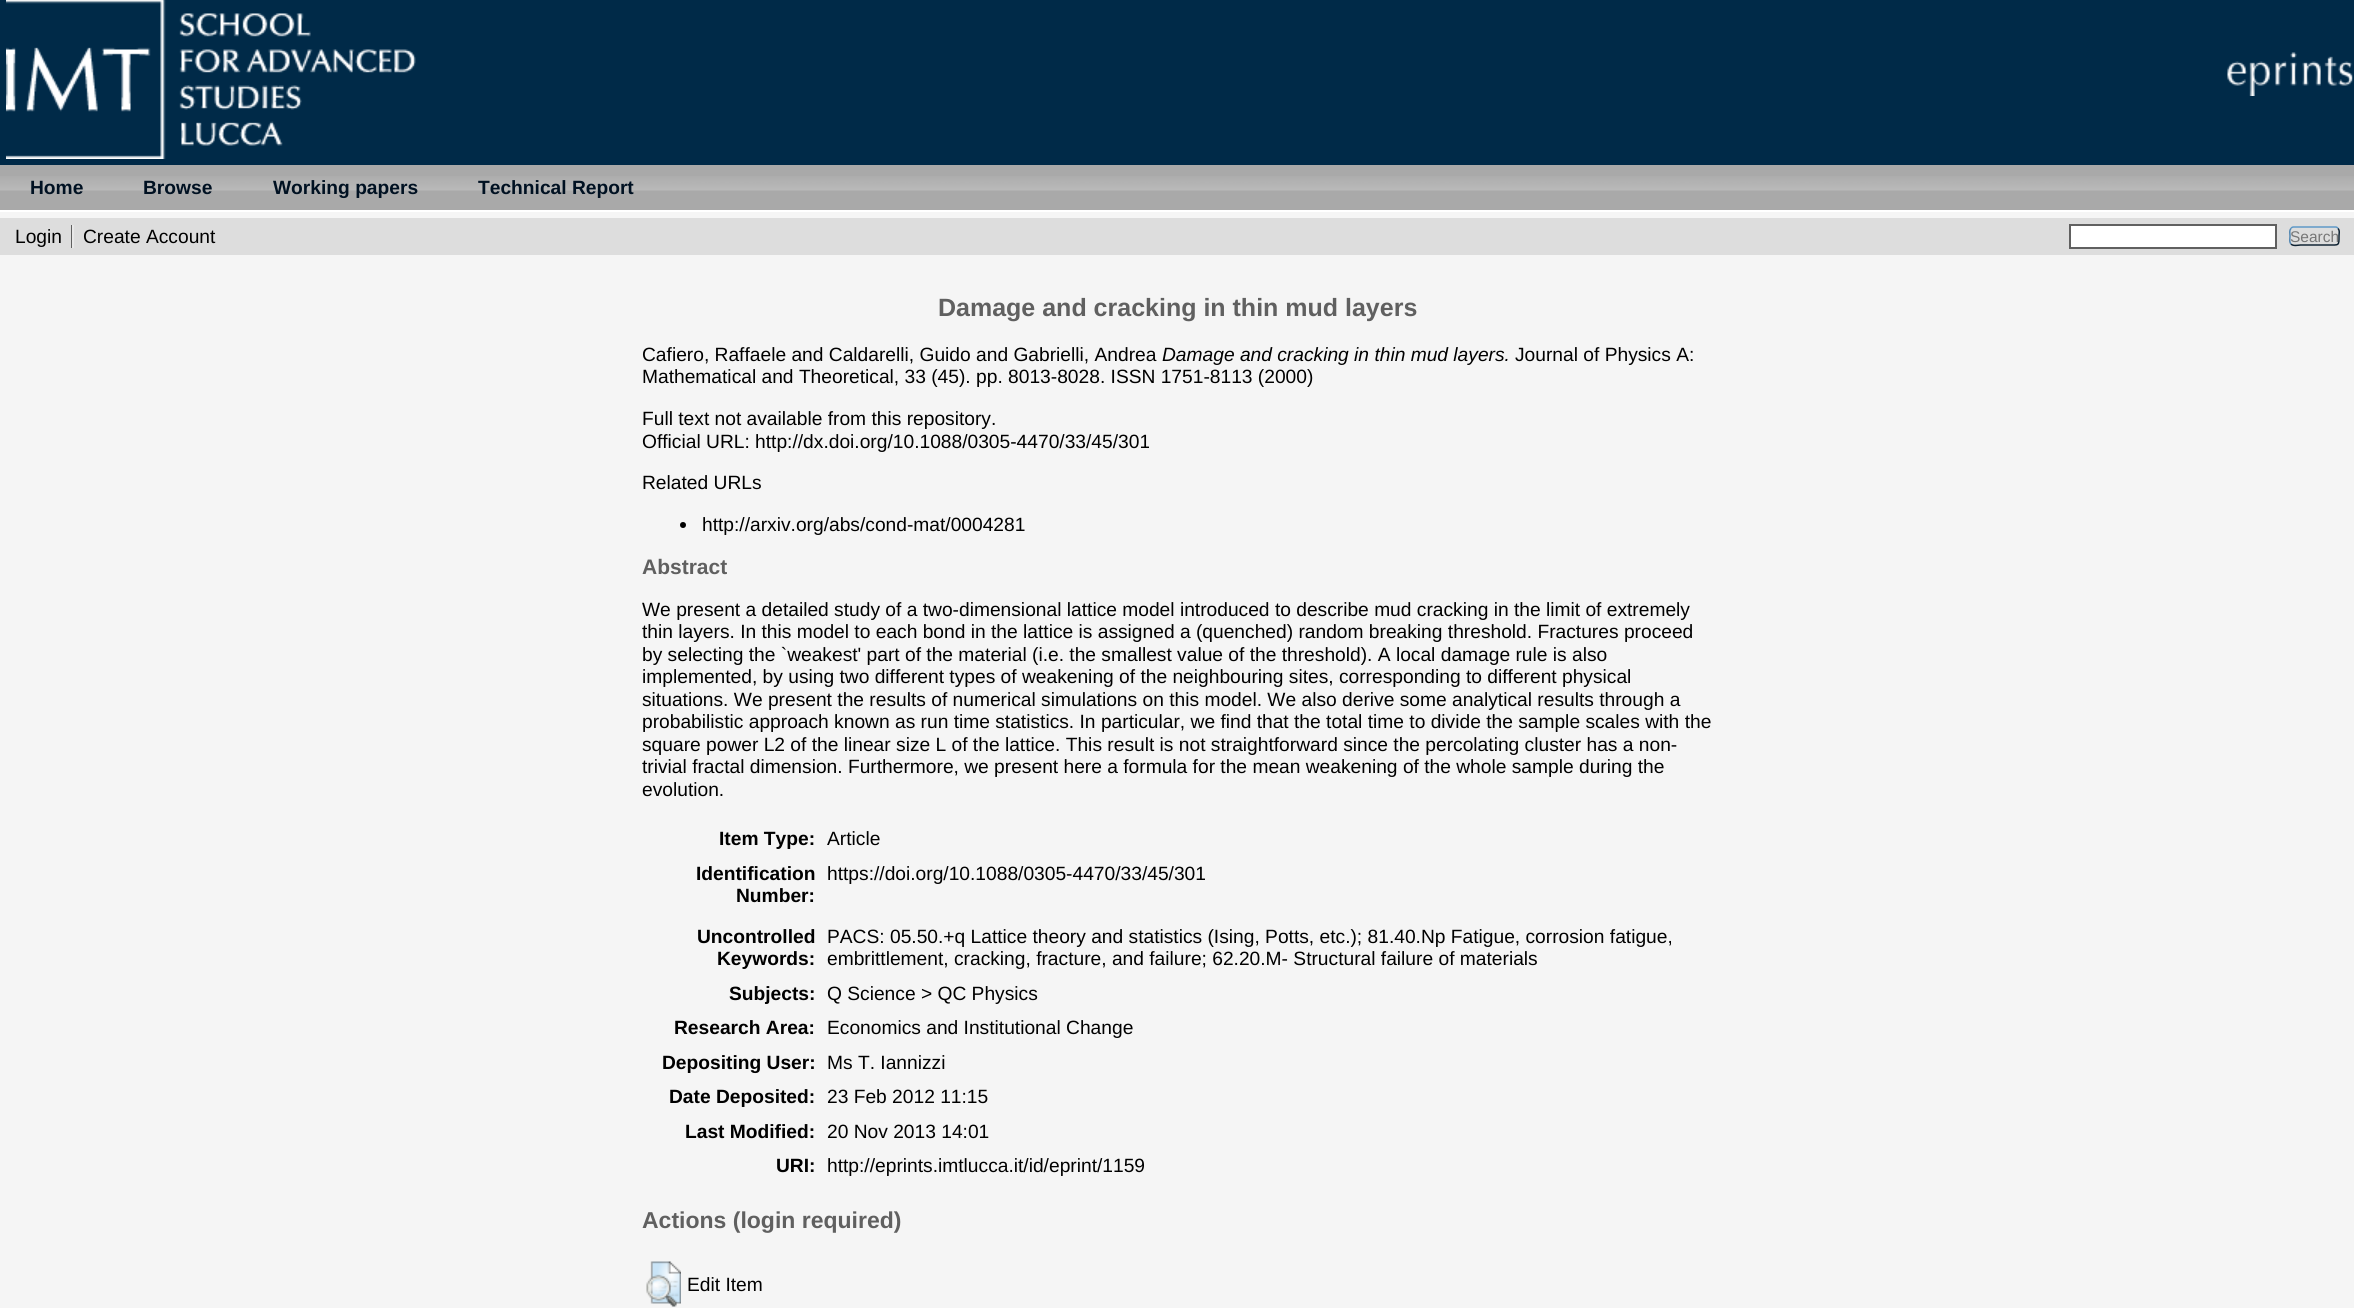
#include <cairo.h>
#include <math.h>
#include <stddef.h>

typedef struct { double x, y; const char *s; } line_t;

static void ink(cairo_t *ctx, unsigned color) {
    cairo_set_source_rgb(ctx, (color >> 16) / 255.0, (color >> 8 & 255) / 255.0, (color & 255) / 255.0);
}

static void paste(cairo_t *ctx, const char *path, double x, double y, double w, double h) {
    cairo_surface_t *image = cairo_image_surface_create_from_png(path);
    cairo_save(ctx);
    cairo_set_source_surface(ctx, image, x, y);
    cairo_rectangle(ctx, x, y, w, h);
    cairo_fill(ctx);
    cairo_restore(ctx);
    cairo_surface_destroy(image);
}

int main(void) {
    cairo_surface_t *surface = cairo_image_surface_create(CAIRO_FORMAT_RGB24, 2354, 1308);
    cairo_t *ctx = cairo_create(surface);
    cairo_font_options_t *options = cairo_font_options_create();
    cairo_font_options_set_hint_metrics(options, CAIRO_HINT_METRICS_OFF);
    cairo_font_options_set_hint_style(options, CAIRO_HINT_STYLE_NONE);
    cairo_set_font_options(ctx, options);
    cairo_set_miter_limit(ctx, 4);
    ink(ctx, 0xF5F5F5);
    cairo_paint(ctx);
    ink(ctx, 0x002A48);
    cairo_rectangle(ctx, 0, 0, 2354, 165);
    cairo_fill(ctx);
    paste(ctx, "media/1.png", 6, 0, 410, 159);
    paste(ctx, "media/2.png", 2227, 52, 126, 44);
    ink(ctx, 0xA9A9A9);
    cairo_rectangle(ctx, 0, 165, 2354, 45);
    cairo_fill(ctx);
    paste(ctx, "media/3.png", 0, 176, 2354, 15);
    ink(ctx, 0xFFFFFF);
    cairo_rectangle(ctx, 0, 210, 2354, 2);
    cairo_fill(ctx);
    cairo_select_font_face(ctx, "Liberation Sans", CAIRO_FONT_SLANT_NORMAL, CAIRO_FONT_WEIGHT_BOLD);
    cairo_set_font_size(ctx, 19.2);
    ink(ctx, 0x001122);
    {
        static const line_t items[] = {
            {30, 194, "Home"},
            {143, 194, "Browse"},
            {273, 194, "Working papers"},
            {478, 194, "Technical Report"},
        };
        for (size_t i = 0; i < sizeof items / sizeof *items; i++) {
            cairo_move_to(ctx, items[i].x, items[i].y);
            cairo_show_text(ctx, items[i].s);
        }
    }
    ink(ctx, 0xDDDDDD);
    cairo_rectangle(ctx, 0, 218, 2354, 37);
    cairo_fill(ctx);
    cairo_select_font_face(ctx, "Liberation Sans", CAIRO_FONT_SLANT_NORMAL, CAIRO_FONT_WEIGHT_NORMAL);
    ink(ctx, 0x000000);
    cairo_move_to(ctx, 15, 243);
    cairo_show_text(ctx, "Login");
    ink(ctx, 0x606060);
    cairo_rectangle(ctx, 71, 225, 1, 23);
    cairo_fill(ctx);
    ink(ctx, 0x000000);
    cairo_move_to(ctx, 83, 243);
    cairo_show_text(ctx, "Create Account");
    ink(ctx, 0xE8E8E8);
    cairo_rectangle(ctx, 72, 225, 2, 23);
    cairo_fill(ctx);
    ink(ctx, 0xFFFFFF);
    cairo_rectangle(ctx, 2070, 225, 206, 23);
    cairo_fill_preserve(ctx);
    ink(ctx, 0x606060);
    cairo_stroke(ctx);
    cairo_new_path(ctx);
    cairo_move_to(ctx, 2291, 228.5);
    cairo_curve_to(ctx, 2291.5, 227.5, 2292.5, 227, 2293.5, 227);
    cairo_line_to(ctx, 2335.5, 227);
    cairo_curve_to(ctx, 2336.5, 227, 2337.5, 227.5, 2338, 228.5);
    ink(ctx, 0x5B97C7);
    cairo_set_line_width(ctx, 1.5);
    cairo_stroke(ctx);
    cairo_new_path(ctx);
    cairo_move_to(ctx, 2338, 228.5);
    cairo_curve_to(ctx, 2340, 230.5, 2339, 234, 2339, 236);
    cairo_curve_to(ctx, 2339, 246, 2339, 245, 2328.5, 245);
    cairo_line_to(ctx, 2300.5, 245);
    cairo_curve_to(ctx, 2299, 245, 2293, 246.5, 2291, 244);
    ink(ctx, 0x0D2131);
    cairo_stroke(ctx);
    cairo_new_path(ctx);
    cairo_move_to(ctx, 2291, 244);
    cairo_curve_to(ctx, 2289, 242, 2290, 238.5, 2290, 236);
    cairo_curve_to(ctx, 2290, 234, 2289, 230.5, 2291, 228.5);
    ink(ctx, 0x5287B3);
    cairo_stroke(ctx);
    cairo_set_font_size(ctx, 15.5);
    ink(ctx, 0x777777);
    cairo_move_to(ctx, 2290, 242);
    cairo_show_text(ctx, "Search");
    cairo_select_font_face(ctx, "Liberation Sans", CAIRO_FONT_SLANT_NORMAL, CAIRO_FONT_WEIGHT_BOLD);
    cairo_set_font_size(ctx, 25);
    ink(ctx, 0x606060);
    cairo_move_to(ctx, 938, 316);
    cairo_show_text(ctx, "Damage and cracking in thin mud layers");
    cairo_select_font_face(ctx, "Liberation Sans", CAIRO_FONT_SLANT_NORMAL, CAIRO_FONT_WEIGHT_NORMAL);
    cairo_set_font_size(ctx, 19.2);
    ink(ctx, 0x000000);
    cairo_move_to(ctx, 642, 361);
    cairo_show_text(ctx, "Cafiero, Raffaele and Caldarelli, Guido and Gabrielli, Andrea");
    cairo_select_font_face(ctx, "Liberation Sans", CAIRO_FONT_SLANT_ITALIC, CAIRO_FONT_WEIGHT_NORMAL);
    cairo_move_to(ctx, 1162, 361);
    cairo_show_text(ctx, "Damage and cracking in thin mud layers.");
    cairo_select_font_face(ctx, "Liberation Sans", CAIRO_FONT_SLANT_NORMAL, CAIRO_FONT_WEIGHT_NORMAL);
    {
        static const line_t items[] = {
            {1515, 361, "Journal of Physics A:"},
            {642, 383, "Mathematical and Theoretical, 33 (45). pp. 8013-8028. ISSN 1751-8113 (2000)"},
            {642, 425, "Full text not available from this repository."},
            {642, 448, "Official URL: http://dx.doi.org/10.1088/0305-4470/33/45/301"},
            {642, 489, "Related URLs"},
        };
        for (size_t i = 0; i < sizeof items / sizeof *items; i++) {
            cairo_move_to(ctx, items[i].x, items[i].y);
            cairo_show_text(ctx, items[i].s);
        }
    }
    cairo_new_path(ctx);
    cairo_arc(ctx, 683, 525, 3, 0, 2 * M_PI);
    cairo_fill(ctx);
    cairo_move_to(ctx, 702, 531);
    cairo_show_text(ctx, "http://arxiv.org/abs/cond-mat/0004281");
    cairo_select_font_face(ctx, "Liberation Sans", CAIRO_FONT_SLANT_NORMAL, CAIRO_FONT_WEIGHT_BOLD);
    cairo_set_font_size(ctx, 21);
    ink(ctx, 0x606060);
    cairo_move_to(ctx, 642, 574);
    cairo_show_text(ctx, "Abstract");
    cairo_select_font_face(ctx, "Liberation Sans", CAIRO_FONT_SLANT_NORMAL, CAIRO_FONT_WEIGHT_NORMAL);
    cairo_set_font_size(ctx, 19.2);
    ink(ctx, 0x000000);
    {
        static const line_t items[] = {
            {642, 616, "We present a detailed study of a two-dimensional lattice model introduced to describe mud cracking in the limit of extremely"},
            {642, 638, "thin layers. In this model to each bond in the lattice is assigned a (quenched) random breaking threshold. Fractures proceed"},
            {642, 661, "by selecting the `weakest' part of the material (i.e. the smallest value of the threshold). A local damage rule is also"},
            {642, 683, "implemented, by using two different types of weakening of the neighbouring sites, corresponding to different physical"},
            {642, 706, "situations. We present the results of numerical simulations on this model. We also derive some analytical results through a"},
            {642, 728, "probabilistic approach known as run time statistics. In particular, we find that the total time to divide the sample scales with the"},
            {642, 751, "square power L2 of the linear size L of the lattice. This result is not straightforward since the percolating cluster has a non-"},
            {642, 773, "trivial fractal dimension. Furthermore, we present here a formula for the mean weakening of the whole sample during the"},
            {642, 796, "evolution."},
        };
        for (size_t i = 0; i < sizeof items / sizeof *items; i++) {
            cairo_move_to(ctx, items[i].x, items[i].y);
            cairo_show_text(ctx, items[i].s);
        }
    }
    cairo_select_font_face(ctx, "Liberation Sans", CAIRO_FONT_SLANT_NORMAL, CAIRO_FONT_WEIGHT_BOLD);
    cairo_move_to(ctx, 719, 845);
    cairo_show_text(ctx, "Item Type:");
    cairo_select_font_face(ctx, "Liberation Sans", CAIRO_FONT_SLANT_NORMAL, CAIRO_FONT_WEIGHT_NORMAL);
    cairo_move_to(ctx, 827, 845);
    cairo_show_text(ctx, "Article");
    cairo_select_font_face(ctx, "Liberation Sans", CAIRO_FONT_SLANT_NORMAL, CAIRO_FONT_WEIGHT_BOLD);
    cairo_move_to(ctx, 696, 880);
    cairo_show_text(ctx, "Identification");
    cairo_move_to(ctx, 736, 902);
    cairo_show_text(ctx, "Number:");
    cairo_select_font_face(ctx, "Liberation Sans", CAIRO_FONT_SLANT_NORMAL, CAIRO_FONT_WEIGHT_NORMAL);
    cairo_move_to(ctx, 827, 880);
    cairo_show_text(ctx, "https://doi.org/10.1088/0305-4470/33/45/301");
    cairo_select_font_face(ctx, "Liberation Sans", CAIRO_FONT_SLANT_NORMAL, CAIRO_FONT_WEIGHT_BOLD);
    cairo_move_to(ctx, 697, 943);
    cairo_show_text(ctx, "Uncontrolled");
    cairo_move_to(ctx, 717, 965);
    cairo_show_text(ctx, "Keywords:");
    cairo_select_font_face(ctx, "Liberation Sans", CAIRO_FONT_SLANT_NORMAL, CAIRO_FONT_WEIGHT_NORMAL);
    cairo_move_to(ctx, 827, 943);
    cairo_show_text(ctx, "PACS: 05.50.+q Lattice theory and statistics (Ising, Potts, etc.); 81.40.Np Fatigue, corrosion fatigue,");
    cairo_move_to(ctx, 827, 965);
    cairo_show_text(ctx, "embrittlement, cracking, fracture, and failure; 62.20.M- Structural failure of materials");
    cairo_select_font_face(ctx, "Liberation Sans", CAIRO_FONT_SLANT_NORMAL, CAIRO_FONT_WEIGHT_BOLD);
    cairo_move_to(ctx, 729, 1000);
    cairo_show_text(ctx, "Subjects:");
    cairo_select_font_face(ctx, "Liberation Sans", CAIRO_FONT_SLANT_NORMAL, CAIRO_FONT_WEIGHT_NORMAL);
    cairo_move_to(ctx, 827, 1000);
    cairo_show_text(ctx, "Q Science > QC Physics");
    cairo_select_font_face(ctx, "Liberation Sans", CAIRO_FONT_SLANT_NORMAL, CAIRO_FONT_WEIGHT_BOLD);
    cairo_move_to(ctx, 674, 1034);
    cairo_show_text(ctx, "Research Area:");
    cairo_select_font_face(ctx, "Liberation Sans", CAIRO_FONT_SLANT_NORMAL, CAIRO_FONT_WEIGHT_NORMAL);
    cairo_move_to(ctx, 827, 1034);
    cairo_show_text(ctx, "Economics and Institutional Change");
    cairo_select_font_face(ctx, "Liberation Sans", CAIRO_FONT_SLANT_NORMAL, CAIRO_FONT_WEIGHT_BOLD);
    cairo_move_to(ctx, 662, 1069);
    cairo_show_text(ctx, "Depositing User:");
    cairo_select_font_face(ctx, "Liberation Sans", CAIRO_FONT_SLANT_NORMAL, CAIRO_FONT_WEIGHT_NORMAL);
    cairo_move_to(ctx, 827, 1069);
    cairo_show_text(ctx, "Ms T. Iannizzi");
    cairo_select_font_face(ctx, "Liberation Sans", CAIRO_FONT_SLANT_NORMAL, CAIRO_FONT_WEIGHT_BOLD);
    cairo_move_to(ctx, 669, 1103);
    cairo_show_text(ctx, "Date Deposited:");
    cairo_select_font_face(ctx, "Liberation Sans", CAIRO_FONT_SLANT_NORMAL, CAIRO_FONT_WEIGHT_NORMAL);
    cairo_move_to(ctx, 827, 1103);
    cairo_show_text(ctx, "23 Feb 2012 11:15");
    cairo_select_font_face(ctx, "Liberation Sans", CAIRO_FONT_SLANT_NORMAL, CAIRO_FONT_WEIGHT_BOLD);
    cairo_move_to(ctx, 685, 1138);
    cairo_show_text(ctx, "Last Modified:");
    cairo_select_font_face(ctx, "Liberation Sans", CAIRO_FONT_SLANT_NORMAL, CAIRO_FONT_WEIGHT_NORMAL);
    cairo_move_to(ctx, 827, 1138);
    cairo_show_text(ctx, "20 Nov 2013 14:01");
    cairo_select_font_face(ctx, "Liberation Sans", CAIRO_FONT_SLANT_NORMAL, CAIRO_FONT_WEIGHT_BOLD);
    cairo_move_to(ctx, 776, 1172);
    cairo_show_text(ctx, "URI:");
    cairo_select_font_face(ctx, "Liberation Sans", CAIRO_FONT_SLANT_NORMAL, CAIRO_FONT_WEIGHT_NORMAL);
    cairo_move_to(ctx, 827, 1172);
    cairo_show_text(ctx, "http://eprints.imtlucca.it/id/eprint/1159");
    cairo_select_font_face(ctx, "Liberation Sans", CAIRO_FONT_SLANT_NORMAL, CAIRO_FONT_WEIGHT_BOLD);
    cairo_set_font_size(ctx, 23);
    ink(ctx, 0x606060);
    cairo_move_to(ctx, 642, 1228);
    cairo_show_text(ctx, "Actions (login required)");
    paste(ctx, "media/4.png", 646, 1261, 35, 46);
    cairo_select_font_face(ctx, "Liberation Sans", CAIRO_FONT_SLANT_NORMAL, CAIRO_FONT_WEIGHT_NORMAL);
    cairo_set_font_size(ctx, 19.2);
    ink(ctx, 0x000000);
    cairo_move_to(ctx, 687, 1291);
    cairo_show_text(ctx, "Edit Item");
    cairo_surface_write_to_png(surface, "image.png");
    cairo_font_options_destroy(options);
    cairo_destroy(ctx);
    cairo_surface_destroy(surface);
    return 0;
}
